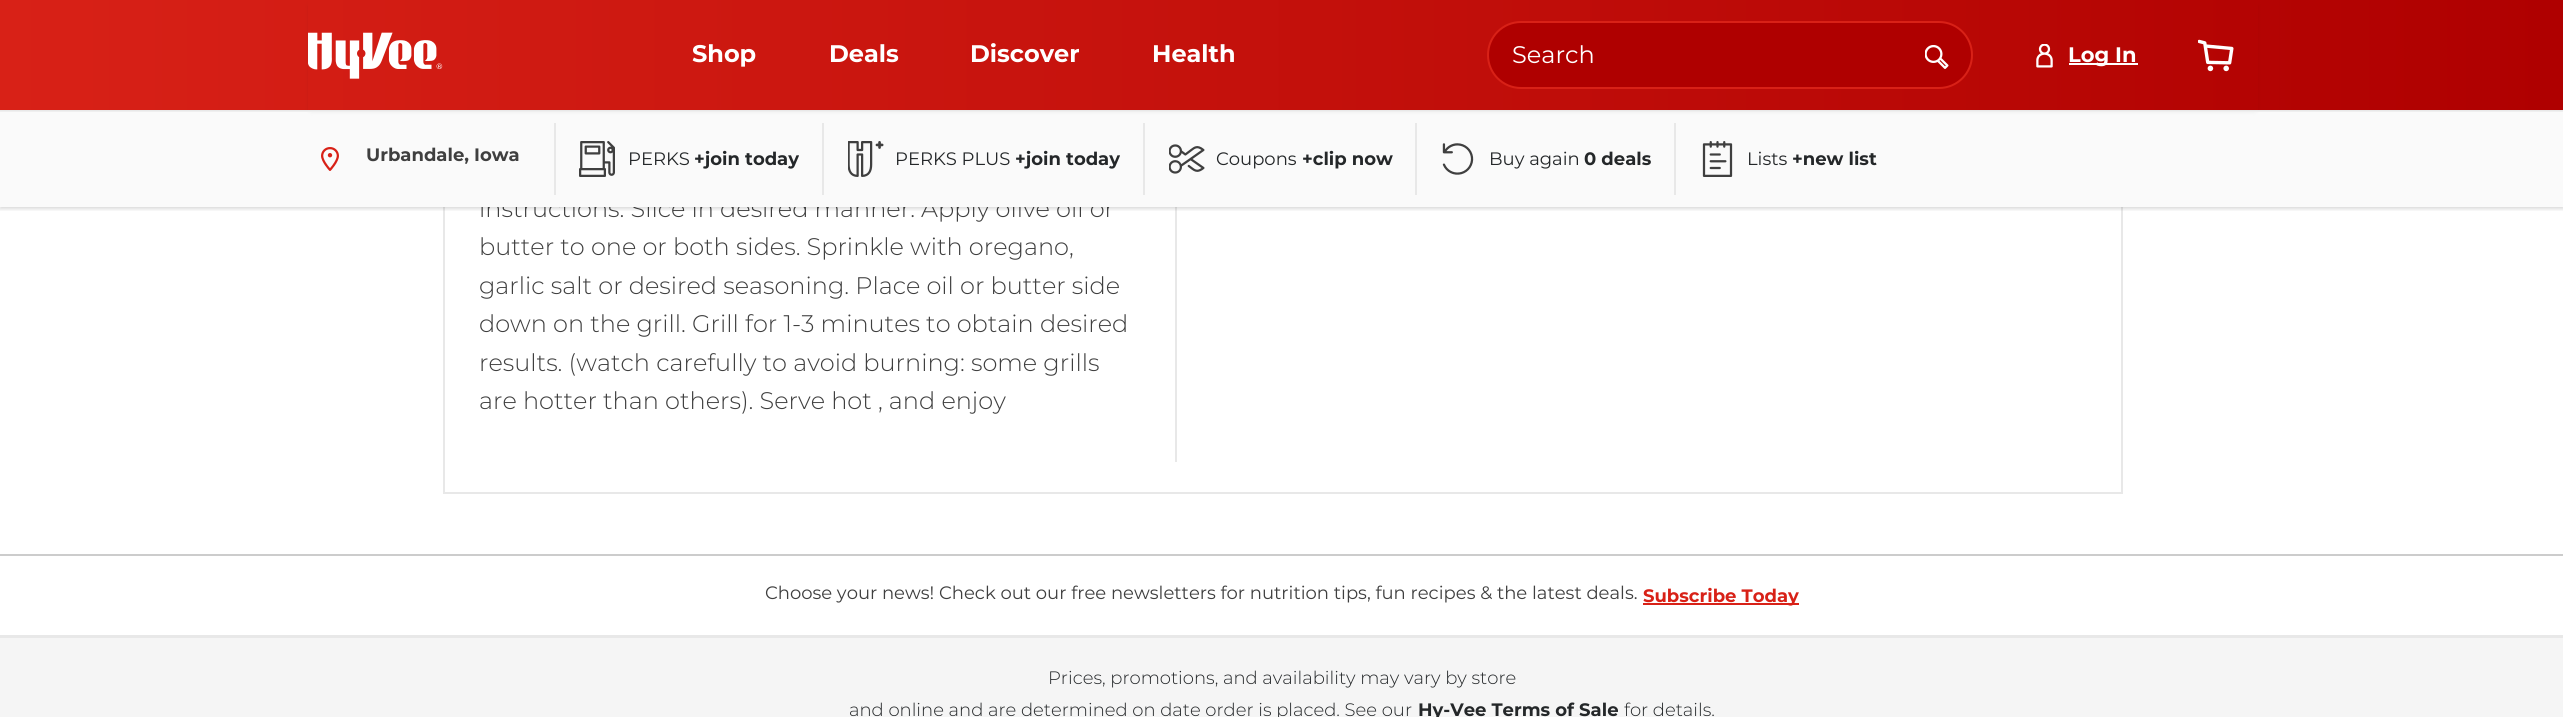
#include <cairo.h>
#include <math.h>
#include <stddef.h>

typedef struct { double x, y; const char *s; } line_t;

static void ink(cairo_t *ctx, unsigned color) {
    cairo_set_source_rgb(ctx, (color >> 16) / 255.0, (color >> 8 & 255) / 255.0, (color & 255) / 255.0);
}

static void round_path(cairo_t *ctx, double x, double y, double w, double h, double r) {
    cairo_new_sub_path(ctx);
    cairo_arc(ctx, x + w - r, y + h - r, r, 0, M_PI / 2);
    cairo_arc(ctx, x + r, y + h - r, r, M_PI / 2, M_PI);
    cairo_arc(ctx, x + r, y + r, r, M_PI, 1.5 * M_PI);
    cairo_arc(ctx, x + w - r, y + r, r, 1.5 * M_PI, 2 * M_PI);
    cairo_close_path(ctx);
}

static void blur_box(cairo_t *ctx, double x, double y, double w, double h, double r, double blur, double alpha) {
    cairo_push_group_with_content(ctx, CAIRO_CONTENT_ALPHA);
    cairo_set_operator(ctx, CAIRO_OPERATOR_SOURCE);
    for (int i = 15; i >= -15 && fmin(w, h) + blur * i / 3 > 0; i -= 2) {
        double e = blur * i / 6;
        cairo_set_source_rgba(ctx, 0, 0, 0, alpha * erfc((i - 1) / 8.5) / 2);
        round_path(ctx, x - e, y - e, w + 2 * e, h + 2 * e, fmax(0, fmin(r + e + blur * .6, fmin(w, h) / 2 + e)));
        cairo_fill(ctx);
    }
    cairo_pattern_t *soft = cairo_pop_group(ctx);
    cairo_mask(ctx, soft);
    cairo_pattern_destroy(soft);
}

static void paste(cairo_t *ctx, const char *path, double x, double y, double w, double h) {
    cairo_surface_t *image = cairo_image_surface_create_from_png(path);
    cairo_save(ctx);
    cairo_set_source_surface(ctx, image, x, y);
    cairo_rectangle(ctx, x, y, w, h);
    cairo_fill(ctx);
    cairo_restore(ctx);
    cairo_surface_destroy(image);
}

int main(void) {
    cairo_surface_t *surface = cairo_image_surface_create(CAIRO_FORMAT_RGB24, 2563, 717);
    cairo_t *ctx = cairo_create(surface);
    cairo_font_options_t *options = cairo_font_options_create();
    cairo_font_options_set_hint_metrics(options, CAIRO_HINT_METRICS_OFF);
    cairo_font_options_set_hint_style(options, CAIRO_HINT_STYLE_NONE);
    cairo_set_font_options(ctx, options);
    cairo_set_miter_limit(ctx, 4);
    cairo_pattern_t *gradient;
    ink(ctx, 0xFFFFFF);
    cairo_paint(ctx);
    cairo_rectangle(ctx, 444, -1, 1678, 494);
    ink(ctx, 0xE8E8E8);
    cairo_stroke(ctx);
    cairo_select_font_face(ctx, "Montserrat Light", CAIRO_FONT_SLANT_NORMAL, CAIRO_FONT_WEIGHT_NORMAL);
    cairo_set_font_size(ctx, 24);
    ink(ctx, 0x3F3F3F);
    cairo_move_to(ctx, 479, 217);
    cairo_show_text(ctx, "instructions: Slice in desired manner. Apply olive oil or");
    ink(ctx, 0xFFFFFF);
    cairo_rectangle(ctx, 443, 112, 1680, 95);
    cairo_fill(ctx);
    gradient = cairo_pattern_create_linear(0, 55, 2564, 55);
    cairo_pattern_add_color_stop_rgba(gradient, 0, 0.847, 0.129, 0.09, 1);
    cairo_pattern_add_color_stop_rgba(gradient, 1, 0.686, 0, 0, 1);
    cairo_set_source(ctx, gradient);
    cairo_pattern_destroy(gradient);
    cairo_rectangle(ctx, 0, 0, 2563, 110);
    cairo_fill(ctx);
    cairo_save(ctx);
    cairo_set_fill_rule(ctx, CAIRO_FILL_RULE_EVEN_ODD);
    cairo_new_path(ctx);
    cairo_move_to(ctx, 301, 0);
    cairo_line_to(ctx, 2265, 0);
    cairo_line_to(ctx, 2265, 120);
    cairo_line_to(ctx, 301, 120);
    cairo_close_path(ctx);
    cairo_move_to(ctx, 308, 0);
    cairo_line_to(ctx, 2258, 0);
    cairo_line_to(ctx, 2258, 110);
    cairo_line_to(ctx, 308, 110);
    cairo_close_path(ctx);
    cairo_clip(ctx);
    ink(ctx, 0x000000);
    blur_box(ctx, 311, 6, 1944, 104, 0, 3, 0.2);
    cairo_restore(ctx);
    paste(ctx, "media/1.png", 308, 32, 135, 47);
    cairo_select_font_face(ctx, "Montserrat", CAIRO_FONT_SLANT_NORMAL, CAIRO_FONT_WEIGHT_BOLD);
    ink(ctx, 0xFFFFFF);
    {
        static const line_t items[] = {
            {692, 62, "Shop"},
            {829, 62, "Deals"},
            {970, 62, "Discover"},
            {1152, 62, "Health"},
        };
        for (size_t i = 0; i < sizeof items / sizeof *items; i++) {
            cairo_move_to(ctx, items[i].x, items[i].y);
            cairo_show_text(ctx, items[i].s);
        }
    }
    ink(ctx, 0xAF0000);
    round_path(ctx, 1488, 22, 484, 66, 33);
    cairo_fill_preserve(ctx);
    ink(ctx, 0xD82117);
    cairo_stroke(ctx);
    cairo_select_font_face(ctx, "Montserrat", CAIRO_FONT_SLANT_NORMAL, CAIRO_FONT_WEIGHT_NORMAL);
    ink(ctx, 0xFFFFFF);
    cairo_move_to(ctx, 1512, 63);
    cairo_show_text(ctx, "Search");
    paste(ctx, "media/2.png", 1925, 45, 24, 24);
    paste(ctx, "media/3.png", 2036, 44, 17, 24);
    cairo_rectangle(ctx, 2069, 63, 69, 2);
    cairo_fill(ctx);
    cairo_select_font_face(ctx, "Montserrat", CAIRO_FONT_SLANT_NORMAL, CAIRO_FONT_WEIGHT_BOLD);
    cairo_set_font_size(ctx, 21);
    cairo_move_to(ctx, 2068, 62);
    cairo_show_text(ctx, "Log In");
    paste(ctx, "media/4.png", 2198, 39, 36, 33);
    ink(ctx, 0xE8E8E8);
    cairo_rectangle(ctx, 0, 110, 2563, 2);
    cairo_fill(ctx);
    cairo_rectangle(ctx, 1175, 207, 2, 255);
    cairo_fill(ctx);
    cairo_save(ctx);
    cairo_rectangle(ctx, 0, 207, 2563, 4);
    cairo_clip(ctx);
    ink(ctx, 0x000000);
    blur_box(ctx, 0, 113, 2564, 96, 0, 2, 0.15);
    cairo_restore(ctx);
    cairo_set_source_rgba(ctx, 0.961, 0.961, 0.961, 0.5);
    cairo_rectangle(ctx, 0, 111, 2563, 96);
    cairo_fill(ctx);
    paste(ctx, "media/5.png", 321, 147, 18, 24);
    cairo_set_font_size(ctx, 18);
    ink(ctx, 0x3F3F3F);
    cairo_move_to(ctx, 366, 161);
    cairo_show_text(ctx, "Urbandale, Iowa");
    ink(ctx, 0xE8E8E8);
    cairo_rectangle(ctx, 554, 123, 2, 72);
    cairo_fill(ctx);
    paste(ctx, "media/6.png", 579, 141, 36, 36);
    cairo_select_font_face(ctx, "Montserrat", CAIRO_FONT_SLANT_NORMAL, CAIRO_FONT_WEIGHT_NORMAL);
    ink(ctx, 0x242729);
    cairo_move_to(ctx, 628, 165);
    cairo_show_text(ctx, "PERKS");
    cairo_select_font_face(ctx, "Montserrat", CAIRO_FONT_SLANT_NORMAL, CAIRO_FONT_WEIGHT_BOLD);
    cairo_move_to(ctx, 694, 165);
    cairo_show_text(ctx, "+join today");
    ink(ctx, 0xE8E8E8);
    cairo_rectangle(ctx, 822, 123, 2, 72);
    cairo_fill(ctx);
    paste(ctx, "media/7.png", 848, 141, 36, 36);
    cairo_select_font_face(ctx, "Montserrat", CAIRO_FONT_SLANT_NORMAL, CAIRO_FONT_WEIGHT_NORMAL);
    ink(ctx, 0x242729);
    cairo_move_to(ctx, 895, 165);
    cairo_show_text(ctx, "PERKS PLUS");
    cairo_select_font_face(ctx, "Montserrat", CAIRO_FONT_SLANT_NORMAL, CAIRO_FONT_WEIGHT_BOLD);
    cairo_move_to(ctx, 1015, 165);
    cairo_show_text(ctx, "+join today");
    ink(ctx, 0xE8E8E8);
    cairo_rectangle(ctx, 1143, 123, 2, 72);
    cairo_fill(ctx);
    paste(ctx, "media/8.png", 1169, 144, 36, 30);
    cairo_select_font_face(ctx, "Montserrat", CAIRO_FONT_SLANT_NORMAL, CAIRO_FONT_WEIGHT_NORMAL);
    ink(ctx, 0x242729);
    cairo_move_to(ctx, 1216, 165);
    cairo_show_text(ctx, "Coupons");
    cairo_select_font_face(ctx, "Montserrat", CAIRO_FONT_SLANT_NORMAL, CAIRO_FONT_WEIGHT_BOLD);
    cairo_move_to(ctx, 1302, 165);
    cairo_show_text(ctx, "+clip now");
    ink(ctx, 0xE8E8E8);
    cairo_rectangle(ctx, 1415, 123, 2, 72);
    cairo_fill(ctx);
    paste(ctx, "media/9.png", 1442, 143, 32, 32);
    cairo_select_font_face(ctx, "Montserrat", CAIRO_FONT_SLANT_NORMAL, CAIRO_FONT_WEIGHT_NORMAL);
    ink(ctx, 0x242729);
    cairo_move_to(ctx, 1489, 165);
    cairo_show_text(ctx, "Buy again");
    cairo_select_font_face(ctx, "Montserrat", CAIRO_FONT_SLANT_NORMAL, CAIRO_FONT_WEIGHT_BOLD);
    cairo_move_to(ctx, 1584, 165);
    cairo_show_text(ctx, "0 deals");
    ink(ctx, 0xE8E8E8);
    cairo_rectangle(ctx, 1674, 123, 2, 72);
    cairo_fill(ctx);
    paste(ctx, "media/10.png", 1702, 141, 31, 36);
    cairo_select_font_face(ctx, "Montserrat", CAIRO_FONT_SLANT_NORMAL, CAIRO_FONT_WEIGHT_NORMAL);
    ink(ctx, 0x242729);
    cairo_move_to(ctx, 1747, 165);
    cairo_show_text(ctx, "Lists");
    cairo_select_font_face(ctx, "Montserrat", CAIRO_FONT_SLANT_NORMAL, CAIRO_FONT_WEIGHT_BOLD);
    cairo_move_to(ctx, 1792, 165);
    cairo_show_text(ctx, "+new list");
    cairo_select_font_face(ctx, "Montserrat Light", CAIRO_FONT_SLANT_NORMAL, CAIRO_FONT_WEIGHT_NORMAL);
    cairo_set_font_size(ctx, 24);
    ink(ctx, 0x3F3F3F);
    {
        static const line_t items[] = {
            {479, 255, "butter to one or both sides. Sprinkle with oregano,"},
            {479, 294, "garlic salt or desired seasoning. Place oil or butter side"},
            {479, 332, "down on the grill. Grill for 1-3 minutes to obtain desired"},
            {479, 371, "results. (watch carefully to avoid burning: some grills"},
            {479, 409, "are hotter than others). Serve hot , and enjoy"},
        };
        for (size_t i = 0; i < sizeof items / sizeof *items; i++) {
            cairo_move_to(ctx, items[i].x, items[i].y);
            cairo_show_text(ctx, items[i].s);
        }
    }
    ink(ctx, 0xCCCCCC);
    cairo_rectangle(ctx, 0, 554, 2563, 2);
    cairo_fill(ctx);
    cairo_select_font_face(ctx, "Montserrat", CAIRO_FONT_SLANT_NORMAL, CAIRO_FONT_WEIGHT_NORMAL);
    cairo_set_font_size(ctx, 18);
    ink(ctx, 0x3F3F3F);
    cairo_move_to(ctx, 765, 599);
    cairo_show_text(ctx, "Choose your news! Check out our free newsletters for nutrition tips, fun recipes & the latest deals.");
    ink(ctx, 0xD82117);
    cairo_rectangle(ctx, 1643, 603, 156, 2);
    cairo_fill(ctx);
    cairo_select_font_face(ctx, "Montserrat", CAIRO_FONT_SLANT_NORMAL, CAIRO_FONT_WEIGHT_BOLD);
    cairo_move_to(ctx, 1643, 602);
    cairo_show_text(ctx, "Subscribe Today");
    ink(ctx, 0xF5F5F5);
    cairo_rectangle(ctx, 0, 638, 2563, 79);
    cairo_fill(ctx);
    ink(ctx, 0xE8E8E8);
    cairo_rectangle(ctx, 0, 635, 2563, 3);
    cairo_fill(ctx);
    cairo_select_font_face(ctx, "Montserrat Light", CAIRO_FONT_SLANT_NORMAL, CAIRO_FONT_WEIGHT_NORMAL);
    ink(ctx, 0x242729);
    cairo_move_to(ctx, 1048, 684);
    cairo_show_text(ctx, "Prices, promotions, and availability may vary by store");
    cairo_move_to(ctx, 849, 716);
    cairo_show_text(ctx, "and online and are determined on date order is placed. See our");
    cairo_select_font_face(ctx, "Montserrat", CAIRO_FONT_SLANT_NORMAL, CAIRO_FONT_WEIGHT_BOLD);
    cairo_move_to(ctx, 1418, 716);
    cairo_show_text(ctx, "Hy-Vee Terms of Sale");
    cairo_select_font_face(ctx, "Montserrat Light", CAIRO_FONT_SLANT_NORMAL, CAIRO_FONT_WEIGHT_NORMAL);
    cairo_move_to(ctx, 1624, 716);
    cairo_show_text(ctx, "for details.");
    cairo_surface_write_to_png(surface, "image.png");
    cairo_font_options_destroy(options);
    cairo_destroy(ctx);
    cairo_surface_destroy(surface);
    return 0;
}
